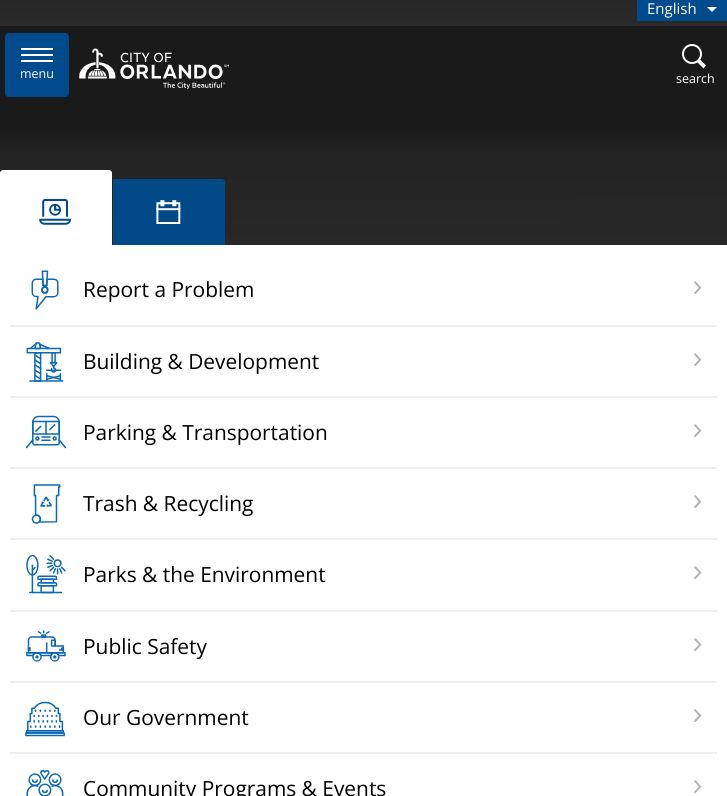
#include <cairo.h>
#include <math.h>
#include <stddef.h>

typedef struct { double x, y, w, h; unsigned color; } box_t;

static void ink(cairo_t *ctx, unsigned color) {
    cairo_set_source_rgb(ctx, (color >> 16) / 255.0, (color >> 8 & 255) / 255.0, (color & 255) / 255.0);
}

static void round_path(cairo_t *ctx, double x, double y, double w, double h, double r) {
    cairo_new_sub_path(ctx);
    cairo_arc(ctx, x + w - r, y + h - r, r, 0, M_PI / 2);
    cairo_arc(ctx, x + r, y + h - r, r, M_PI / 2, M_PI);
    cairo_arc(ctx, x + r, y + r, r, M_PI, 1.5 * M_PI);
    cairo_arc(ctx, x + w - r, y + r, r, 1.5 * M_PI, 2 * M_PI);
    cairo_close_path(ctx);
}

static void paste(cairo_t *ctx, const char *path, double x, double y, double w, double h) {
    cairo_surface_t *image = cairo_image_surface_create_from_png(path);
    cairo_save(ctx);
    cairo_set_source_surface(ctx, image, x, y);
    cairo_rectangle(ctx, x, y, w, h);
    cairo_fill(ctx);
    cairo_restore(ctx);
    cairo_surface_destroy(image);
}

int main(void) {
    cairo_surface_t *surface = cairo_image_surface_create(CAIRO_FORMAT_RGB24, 727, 796);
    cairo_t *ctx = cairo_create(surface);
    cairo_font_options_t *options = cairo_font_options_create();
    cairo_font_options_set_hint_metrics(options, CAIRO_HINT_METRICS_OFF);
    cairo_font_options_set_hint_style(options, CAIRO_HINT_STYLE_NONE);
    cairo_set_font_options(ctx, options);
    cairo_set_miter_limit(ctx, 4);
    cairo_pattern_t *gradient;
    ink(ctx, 0xFFFFFF);
    cairo_paint(ctx);
    gradient = cairo_pattern_create_linear(364, 26, 364, -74);
    cairo_pattern_add_color_stop_rgba(gradient, 0, 0.169, 0.169, 0.169, 1);
    cairo_pattern_add_color_stop_rgba(gradient, 1, 0.102, 0.102, 0.102, 1);
    cairo_set_source(ctx, gradient);
    cairo_pattern_destroy(gradient);
    cairo_rectangle(ctx, 0, 0, 727, 26);
    cairo_fill(ctx);
    ink(ctx, 0x004B8D);
    cairo_rectangle(ctx, 637, 0, 90, 21);
    cairo_fill(ctx);
    cairo_select_font_face(ctx, "Open Sans", CAIRO_FONT_SLANT_NORMAL, CAIRO_FONT_WEIGHT_NORMAL);
    cairo_set_font_size(ctx, 15);
    ink(ctx, 0xFFFFFF);
    cairo_move_to(ctx, 647, 14);
    cairo_show_text(ctx, "English");
    cairo_new_path(ctx);
    cairo_move_to(ctx, 707, 7);
    cairo_line_to(ctx, 717, 7);
    cairo_line_to(ctx, 712, 12);
    cairo_close_path(ctx);
    cairo_fill(ctx);
    ink(ctx, 0x1A1A1A);
    cairo_rectangle(ctx, 0, 26, 727, 84);
    cairo_fill(ctx);
    ink(ctx, 0x004B8D);
    round_path(ctx, 5, 33, 64, 64, 4);
    cairo_fill(ctx);
    {
        static const box_t items[] = {
            {21, 54, 32, 2, 0xFFFFFF},
            {21, 48, 32, 2, 0xFFFFFF},
            {21, 60, 32, 2, 0xFFFFFF},
        };
        for (size_t i = 0; i < sizeof items / sizeof *items; i++) {
            ink(ctx, items[i].color);
            cairo_rectangle(ctx, items[i].x, items[i].y, items[i].w, items[i].h);
            cairo_fill(ctx);
        }
    }
    cairo_set_font_size(ctx, 12.5);
    cairo_move_to(ctx, 20, 78);
    cairo_show_text(ctx, "menu");
    paste(ctx, "media/1.png", 79, 48, 150, 41);
    cairo_arc(ctx, 692, 54, 9, 0, 2 * M_PI);
    cairo_stroke(ctx);
    cairo_new_path(ctx);
    cairo_move_to(ctx, 699, 58.5);
    cairo_line_to(ctx, 706, 65.5);
    cairo_line_to(ctx, 703.5, 68.5);
    cairo_line_to(ctx, 696.5, 61.5);
    cairo_close_path(ctx);
    cairo_fill(ctx);
    cairo_move_to(ctx, 676, 83);
    cairo_show_text(ctx, "search");
    gradient = cairo_pattern_create_linear(364, 110, 364, 150);
    cairo_pattern_add_color_stop_rgba(gradient, 0, 0.102, 0.102, 0.102, 1);
    cairo_pattern_add_color_stop_rgba(gradient, 0.5, 0.102, 0.102, 0.102, 1);
    cairo_pattern_add_color_stop_rgba(gradient, 1, 0.133, 0.133, 0.133, 1);
    cairo_set_source(ctx, gradient);
    cairo_pattern_destroy(gradient);
    cairo_rectangle(ctx, 0, 110, 727, 40);
    cairo_fill(ctx);
    gradient = cairo_pattern_create_linear(363, 150, 364, 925);
    cairo_pattern_add_color_stop_rgba(gradient, 0, 0.137, 0.137, 0.137, 1);
    cairo_pattern_add_color_stop_rgba(gradient, 0.2, 0.169, 0.169, 0.169, 1);
    cairo_set_source(ctx, gradient);
    cairo_pattern_destroy(gradient);
    cairo_rectangle(ctx, 0, 150, 727, 95);
    cairo_fill(ctx);
    ink(ctx, 0xFFFFFF);
    cairo_new_path(ctx);
    cairo_move_to(ctx, 3, 170);
    cairo_line_to(ctx, 109, 170);
    cairo_curve_to(ctx, 110.5, 170, 112, 171.5, 112, 173);
    cairo_line_to(ctx, 112, 245);
    cairo_line_to(ctx, 0, 245);
    cairo_line_to(ctx, 0, 173);
    cairo_curve_to(ctx, 0, 171.5, 1.5, 170, 3, 170);
    cairo_close_path(ctx);
    cairo_fill(ctx);
    paste(ctx, "media/2.png", 39, 199, 32, 26);
    cairo_set_source_rgba(ctx, 0, 0.294, 0.553, 0.95);
    cairo_new_path(ctx);
    cairo_move_to(ctx, 113, 179);
    cairo_line_to(ctx, 222, 179);
    cairo_curve_to(ctx, 223.5, 179, 225, 180.5, 225, 182);
    cairo_line_to(ctx, 225, 245);
    cairo_line_to(ctx, 113, 245);
    cairo_close_path(ctx);
    cairo_fill(ctx);
    paste(ctx, "media/3.png", 156, 200, 25, 24);
    paste(ctx, "media/4.png", 31, 270, 28, 40);
    cairo_set_font_size(ctx, 20.9);
    ink(ctx, 0x000000);
    cairo_move_to(ctx, 83, 297);
    cairo_show_text(ctx, "Report a Problem");
    paste(ctx, "media/5.png", 694, 281, 8, 13);
    ink(ctx, 0xEDEFEF);
    cairo_rectangle(ctx, 10, 325, 707, 2);
    cairo_fill(ctx);
    paste(ctx, "media/6.png", 26, 342, 38, 40);
    ink(ctx, 0x000000);
    cairo_move_to(ctx, 83, 369);
    cairo_show_text(ctx, "Building & Development");
    paste(ctx, "media/5.png", 694, 353, 8, 13);
    ink(ctx, 0xEDEFEF);
    cairo_rectangle(ctx, 10, 396, 707, 2);
    cairo_fill(ctx);
    paste(ctx, "media/7.png", 25, 415, 42, 34);
    ink(ctx, 0x000000);
    cairo_move_to(ctx, 83, 440);
    cairo_show_text(ctx, "Parking & Transportation");
    paste(ctx, "media/5.png", 694, 424, 8, 13);
    ink(ctx, 0xEDEFEF);
    cairo_rectangle(ctx, 10, 467, 707, 2);
    cairo_fill(ctx);
    paste(ctx, "media/8.png", 31, 484, 30, 40);
    ink(ctx, 0x000000);
    cairo_move_to(ctx, 83, 511);
    cairo_show_text(ctx, "Trash & Recycling");
    paste(ctx, "media/5.png", 694, 495, 8, 13);
    ink(ctx, 0xEDEFEF);
    cairo_rectangle(ctx, 10, 538, 707, 2);
    cairo_fill(ctx);
    paste(ctx, "media/9.png", 26, 554, 40, 40);
    ink(ctx, 0x000000);
    cairo_move_to(ctx, 83, 582);
    cairo_show_text(ctx, "Parks & the Environment");
    paste(ctx, "media/5.png", 694, 566, 8, 13);
    ink(ctx, 0xEDEFEF);
    cairo_rectangle(ctx, 10, 610, 707, 2);
    cairo_fill(ctx);
    paste(ctx, "media/10.png", 26, 630, 40, 32);
    ink(ctx, 0x000000);
    cairo_move_to(ctx, 83, 654);
    cairo_show_text(ctx, "Public Safety");
    paste(ctx, "media/5.png", 694, 638, 8, 13);
    ink(ctx, 0xEDEFEF);
    cairo_rectangle(ctx, 10, 681, 707, 2);
    cairo_fill(ctx);
    paste(ctx, "media/11.png", 25, 701, 40, 36);
    ink(ctx, 0x000000);
    cairo_move_to(ctx, 83, 725);
    cairo_show_text(ctx, "Our Government");
    paste(ctx, "media/5.png", 694, 709, 8, 13);
    ink(ctx, 0xEDEFEF);
    cairo_rectangle(ctx, 10, 752, 707, 2);
    cairo_fill(ctx);
    paste(ctx, "media/12.png", 26, 769, 38, 27);
    ink(ctx, 0x000000);
    cairo_move_to(ctx, 83, 796);
    cairo_show_text(ctx, "Community Programs & Events");
    paste(ctx, "media/5.png", 694, 780, 8, 13);
    cairo_surface_write_to_png(surface, "image.png");
    cairo_font_options_destroy(options);
    cairo_destroy(ctx);
    cairo_surface_destroy(surface);
    return 0;
}
